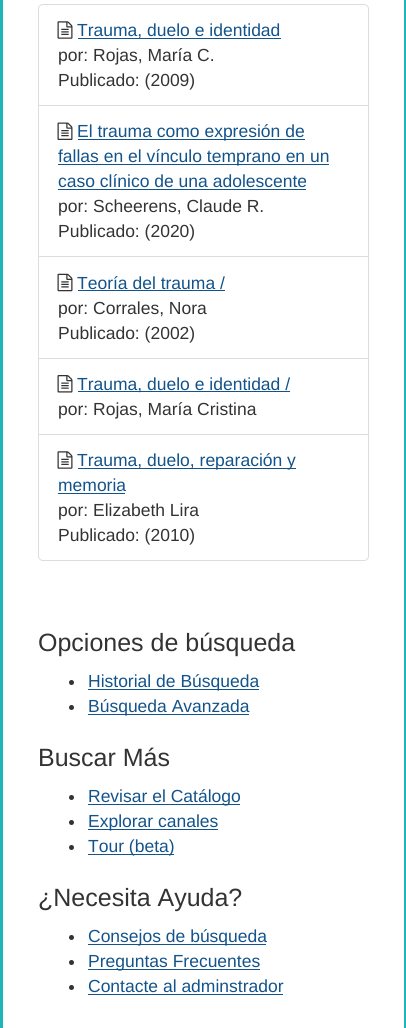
#include <cairo.h>
#include <math.h>
#include <stddef.h>


static void ink(cairo_t *ctx, unsigned color) {
    cairo_set_source_rgb(ctx, (color >> 16) / 255.0, (color >> 8 & 255) / 255.0, (color & 255) / 255.0);
}

static void paste(cairo_t *ctx, const char *path, double x, double y, double w, double h) {
    cairo_surface_t *image = cairo_image_surface_create_from_png(path);
    cairo_save(ctx);
    cairo_set_source_surface(ctx, image, x, y);
    cairo_rectangle(ctx, x, y, w, h);
    cairo_fill(ctx);
    cairo_restore(ctx);
    cairo_surface_destroy(image);
}

int main(void) {
    cairo_surface_t *surface = cairo_image_surface_create(CAIRO_FORMAT_RGB24, 406, 1028);
    cairo_t *ctx = cairo_create(surface);
    cairo_font_options_t *options = cairo_font_options_create();
    cairo_font_options_set_hint_metrics(options, CAIRO_HINT_METRICS_OFF);
    cairo_font_options_set_hint_style(options, CAIRO_HINT_STYLE_NONE);
    cairo_set_font_options(ctx, options);
    cairo_set_miter_limit(ctx, 4);
    ink(ctx, 0xFFFFFF);
    cairo_paint(ctx);
    ink(ctx, 0x1EB7B7);
    cairo_rectangle(ctx, 404, 0, 2, 1028);
    cairo_fill(ctx);
    cairo_rectangle(ctx, 0, 0, 3, 1028);
    cairo_fill(ctx);
    cairo_new_path(ctx);
    cairo_move_to(ctx, 43, 4.5);
    cairo_line_to(ctx, 364, 4.5);
    cairo_curve_to(ctx, 366.5, 4.5, 368.5, 6.5, 368.5, 9);
    cairo_line_to(ctx, 368.5, 105.5);
    cairo_line_to(ctx, 38.5, 105.5);
    cairo_line_to(ctx, 38.5, 9);
    cairo_curve_to(ctx, 38.5, 6.5, 40.5, 4.5, 43, 4.5);
    cairo_close_path(ctx);
    ink(ctx, 0xDDDDDD);
    cairo_set_line_width(ctx, 1);
    cairo_stroke(ctx);
    paste(ctx, "media/1.png", 57, 21, 16, 18);
    ink(ctx, 0x12538B);
    cairo_rectangle(ctx, 78, 38, 203, 1);
    cairo_fill(ctx);
    cairo_select_font_face(ctx, "Liberation Sans", CAIRO_FONT_SLANT_NORMAL, CAIRO_FONT_WEIGHT_NORMAL);
    cairo_set_font_size(ctx, 17.5);
    cairo_move_to(ctx, 77, 36);
    cairo_show_text(ctx, "Trauma, duelo e identidad");
    ink(ctx, 0x333333);
    cairo_move_to(ctx, 58, 61);
    cairo_show_text(ctx, "por: Rojas, María C.");
    cairo_move_to(ctx, 58, 86);
    cairo_show_text(ctx, "Publicado: (2009)");
    cairo_rectangle(ctx, 38.5, 105.5, 330, 152);
    ink(ctx, 0xDDDDDD);
    cairo_stroke(ctx);
    paste(ctx, "media/2.png", 57, 122, 16, 18);
    ink(ctx, 0x12538B);
    cairo_rectangle(ctx, 78, 139, 227, 1);
    cairo_fill(ctx);
    cairo_move_to(ctx, 77, 137);
    cairo_show_text(ctx, "El trauma como expresión de");
    cairo_rectangle(ctx, 58, 164, 271, 1);
    cairo_fill(ctx);
    cairo_move_to(ctx, 58, 162);
    cairo_show_text(ctx, "fallas en el vínculo temprano en un");
    cairo_move_to(ctx, 58, 187);
    cairo_show_text(ctx, "caso clínico de una adolescente");
    cairo_rectangle(ctx, 58, 189, 248, 1);
    cairo_fill(ctx);
    ink(ctx, 0x333333);
    cairo_move_to(ctx, 58, 212);
    cairo_show_text(ctx, "por: Scheerens, Claude R.");
    cairo_move_to(ctx, 58, 237);
    cairo_show_text(ctx, "Publicado: (2020)");
    ink(ctx, 0xFFFFFF);
    cairo_rectangle(ctx, 39, 257, 329, 1);
    cairo_fill(ctx);
    cairo_rectangle(ctx, 38.5, 256.5, 330, 102);
    ink(ctx, 0xDDDDDD);
    cairo_stroke(ctx);
    paste(ctx, "media/3.png", 57, 273, 16, 19);
    ink(ctx, 0x12538B);
    cairo_move_to(ctx, 77, 289);
    cairo_show_text(ctx, "Teoría del trauma /");
    cairo_rectangle(ctx, 78, 290, 147, 1);
    cairo_fill(ctx);
    ink(ctx, 0x333333);
    cairo_move_to(ctx, 58, 314);
    cairo_show_text(ctx, "por: Corrales, Nora");
    cairo_move_to(ctx, 58, 339);
    cairo_show_text(ctx, "Publicado: (2002)");
    cairo_rectangle(ctx, 38.5, 358.5, 330, 76);
    ink(ctx, 0xDDDDDD);
    cairo_stroke(ctx);
    paste(ctx, "media/4.png", 57, 375, 16, 18);
    ink(ctx, 0x12538B);
    cairo_rectangle(ctx, 78, 391, 212, 1);
    cairo_fill(ctx);
    cairo_move_to(ctx, 77, 390);
    cairo_show_text(ctx, "Trauma, duelo e identidad /");
    ink(ctx, 0x333333);
    cairo_move_to(ctx, 58, 415);
    cairo_show_text(ctx, "por: Rojas, María Cristina");
    ink(ctx, 0xFFFFFF);
    cairo_new_path(ctx);
    cairo_move_to(ctx, 38.5, 434.5);
    cairo_line_to(ctx, 368.5, 434.5);
    cairo_line_to(ctx, 368.5, 556);
    cairo_curve_to(ctx, 368.5, 558.5, 366.5, 560.5, 364, 560.5);
    cairo_line_to(ctx, 43, 560.5);
    cairo_curve_to(ctx, 40.5, 560.5, 38.5, 558.5, 38.5, 556);
    cairo_close_path(ctx);
    cairo_fill_preserve(ctx);
    ink(ctx, 0xDDDDDD);
    cairo_stroke(ctx);
    paste(ctx, "media/1.png", 57, 451, 16, 18);
    ink(ctx, 0x12538B);
    cairo_rectangle(ctx, 78, 468, 218, 1);
    cairo_fill(ctx);
    cairo_move_to(ctx, 77, 466);
    cairo_show_text(ctx, "Trauma, duelo, reparación y");
    cairo_move_to(ctx, 58, 491);
    cairo_show_text(ctx, "memoria");
    cairo_rectangle(ctx, 58, 493, 67, 1);
    cairo_fill(ctx);
    ink(ctx, 0x333333);
    cairo_move_to(ctx, 58, 516);
    cairo_show_text(ctx, "por: Elizabeth Lira");
    cairo_move_to(ctx, 58, 541);
    cairo_show_text(ctx, "Publicado: (2010)");
    cairo_set_font_size(ctx, 25);
    cairo_move_to(ctx, 38, 651);
    cairo_show_text(ctx, "Opciones de búsqueda");
    cairo_new_path(ctx);
    cairo_arc(ctx, 71.5, 682.5, 2.5, 0, 2 * M_PI);
    cairo_fill(ctx);
    ink(ctx, 0x12538B);
    cairo_rectangle(ctx, 88, 689, 171, 1);
    cairo_fill(ctx);
    cairo_set_font_size(ctx, 17.5);
    cairo_move_to(ctx, 88, 687);
    cairo_show_text(ctx, "Historial de Búsqueda");
    ink(ctx, 0x333333);
    cairo_new_path(ctx);
    cairo_arc(ctx, 71.5, 707.5, 2.5, 0, 2 * M_PI);
    cairo_fill(ctx);
    ink(ctx, 0x12538B);
    cairo_rectangle(ctx, 88, 714, 161, 1);
    cairo_fill(ctx);
    cairo_move_to(ctx, 88, 712);
    cairo_show_text(ctx, "Búsqueda Avanzada");
    cairo_set_font_size(ctx, 25);
    ink(ctx, 0x333333);
    cairo_move_to(ctx, 38, 766);
    cairo_show_text(ctx, "Buscar Más");
    cairo_new_path(ctx);
    cairo_arc(ctx, 71.5, 797.5, 2.5, 0, 2 * M_PI);
    cairo_fill(ctx);
    ink(ctx, 0x12538B);
    cairo_rectangle(ctx, 88, 804, 152, 1);
    cairo_fill(ctx);
    cairo_set_font_size(ctx, 17.5);
    cairo_move_to(ctx, 88, 802);
    cairo_show_text(ctx, "Revisar el Catálogo");
    ink(ctx, 0x333333);
    cairo_new_path(ctx);
    cairo_arc(ctx, 71.5, 822.5, 2.5, 0, 2 * M_PI);
    cairo_fill(ctx);
    ink(ctx, 0x12538B);
    cairo_rectangle(ctx, 88, 829, 130, 1);
    cairo_fill(ctx);
    cairo_move_to(ctx, 88, 827);
    cairo_show_text(ctx, "Explorar canales");
    ink(ctx, 0x333333);
    cairo_new_path(ctx);
    cairo_arc(ctx, 71.5, 847.5, 2.5, 0, 2 * M_PI);
    cairo_fill(ctx);
    ink(ctx, 0x12538B);
    cairo_rectangle(ctx, 88, 854, 86, 1);
    cairo_fill(ctx);
    cairo_move_to(ctx, 88, 852);
    cairo_show_text(ctx, "Tour (beta)");
    cairo_set_font_size(ctx, 25);
    ink(ctx, 0x333333);
    cairo_move_to(ctx, 38, 906);
    cairo_show_text(ctx, "¿Necesita Ayuda?");
    cairo_new_path(ctx);
    cairo_arc(ctx, 71.5, 937.5, 2.5, 0, 2 * M_PI);
    cairo_fill(ctx);
    ink(ctx, 0x12538B);
    cairo_rectangle(ctx, 88, 944, 178, 1);
    cairo_fill(ctx);
    cairo_set_font_size(ctx, 17.5);
    cairo_move_to(ctx, 88, 942);
    cairo_show_text(ctx, "Consejos de búsqueda");
    ink(ctx, 0x333333);
    cairo_new_path(ctx);
    cairo_arc(ctx, 71.5, 962.5, 2.5, 0, 2 * M_PI);
    cairo_fill(ctx);
    ink(ctx, 0x12538B);
    cairo_rectangle(ctx, 88, 969, 172, 1);
    cairo_fill(ctx);
    cairo_move_to(ctx, 88, 967);
    cairo_show_text(ctx, "Preguntas Frecuentes");
    ink(ctx, 0x333333);
    cairo_new_path(ctx);
    cairo_arc(ctx, 71.5, 987.5, 2.5, 0, 2 * M_PI);
    cairo_fill(ctx);
    ink(ctx, 0x12538B);
    cairo_move_to(ctx, 88, 992);
    cairo_show_text(ctx, "Contacte al adminstrador");
    cairo_rectangle(ctx, 88, 994, 195, 1);
    cairo_fill(ctx);
    cairo_surface_write_to_png(surface, "image.png");
    cairo_font_options_destroy(options);
    cairo_destroy(ctx);
    cairo_surface_destroy(surface);
    return 0;
}
